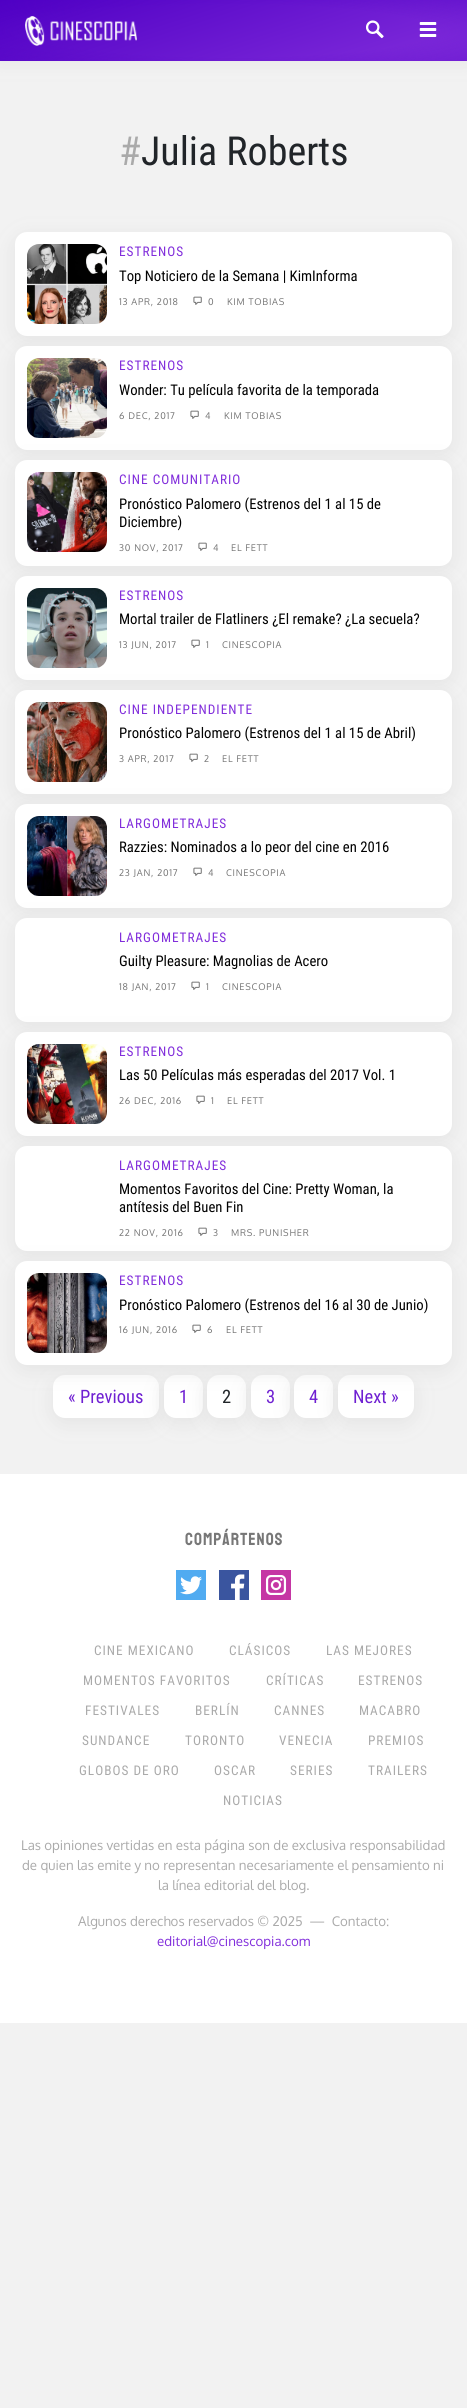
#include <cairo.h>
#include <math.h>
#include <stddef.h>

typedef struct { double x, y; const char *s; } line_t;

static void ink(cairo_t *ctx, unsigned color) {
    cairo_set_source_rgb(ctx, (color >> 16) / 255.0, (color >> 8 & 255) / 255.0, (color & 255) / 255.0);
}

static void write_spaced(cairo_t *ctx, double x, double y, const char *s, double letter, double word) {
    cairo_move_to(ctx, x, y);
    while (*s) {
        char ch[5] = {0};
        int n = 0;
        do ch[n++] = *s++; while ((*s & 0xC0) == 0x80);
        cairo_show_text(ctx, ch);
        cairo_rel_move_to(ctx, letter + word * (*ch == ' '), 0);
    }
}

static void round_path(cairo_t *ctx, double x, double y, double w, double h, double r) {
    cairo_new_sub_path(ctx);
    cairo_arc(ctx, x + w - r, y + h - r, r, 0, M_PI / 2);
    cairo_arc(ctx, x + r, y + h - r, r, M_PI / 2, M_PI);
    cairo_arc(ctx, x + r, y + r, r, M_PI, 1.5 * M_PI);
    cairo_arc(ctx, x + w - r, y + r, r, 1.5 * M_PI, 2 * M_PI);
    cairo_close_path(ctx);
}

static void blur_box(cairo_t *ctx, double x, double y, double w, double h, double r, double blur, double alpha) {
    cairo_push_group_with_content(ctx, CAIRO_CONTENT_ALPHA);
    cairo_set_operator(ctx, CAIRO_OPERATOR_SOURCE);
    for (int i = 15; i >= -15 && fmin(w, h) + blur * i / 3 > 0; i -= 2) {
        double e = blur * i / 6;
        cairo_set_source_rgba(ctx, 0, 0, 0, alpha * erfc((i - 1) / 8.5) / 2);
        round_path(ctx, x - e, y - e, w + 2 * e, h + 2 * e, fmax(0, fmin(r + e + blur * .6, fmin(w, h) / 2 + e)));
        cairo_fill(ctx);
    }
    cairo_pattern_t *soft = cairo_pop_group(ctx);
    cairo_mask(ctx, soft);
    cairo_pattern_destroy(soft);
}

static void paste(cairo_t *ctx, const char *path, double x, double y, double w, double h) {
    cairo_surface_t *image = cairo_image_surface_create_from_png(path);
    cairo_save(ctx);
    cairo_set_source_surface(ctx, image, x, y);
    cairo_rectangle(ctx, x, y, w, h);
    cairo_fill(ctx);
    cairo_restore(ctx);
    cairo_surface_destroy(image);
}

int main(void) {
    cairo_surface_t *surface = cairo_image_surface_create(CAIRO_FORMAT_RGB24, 467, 2408);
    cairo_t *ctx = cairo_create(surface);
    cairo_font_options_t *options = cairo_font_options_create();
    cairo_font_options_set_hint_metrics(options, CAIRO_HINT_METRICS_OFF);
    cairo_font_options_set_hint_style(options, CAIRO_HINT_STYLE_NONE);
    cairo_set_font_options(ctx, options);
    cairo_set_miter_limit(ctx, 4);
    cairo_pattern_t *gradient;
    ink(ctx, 0xF2F2F2);
    cairo_paint(ctx);
    ink(ctx, 0xE4E4E4);
    blur_box(ctx, 0, 0, 467, 61, 0, 10, 1);
    gradient = cairo_pattern_create_linear(265, 127, 202, -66);
    cairo_pattern_add_color_stop_rgba(gradient, 0, 0.506, 0.176, 0.859, 1);
    cairo_pattern_add_color_stop_rgba(gradient, 1, 0.31, 0, 0.769, 1);
    cairo_set_source(ctx, gradient);
    cairo_pattern_destroy(gradient);
    cairo_rectangle(ctx, 0, 0, 467, 61);
    cairo_fill(ctx);
    gradient = cairo_pattern_create_radial(0, 0, 0, 0, 0, 1);
    cairo_pattern_set_matrix(gradient, &(cairo_matrix_t){1.0 / 330, 0, 0, 1.0 / 43, -1.0 * 234 / 330, -1.0 * 31 / 43});
    cairo_pattern_add_color_stop_rgba(gradient, 0.6, 0.31, 0, 0.769, 0);
    cairo_pattern_add_color_stop_rgba(gradient, 1, 0.31, 0, 0.769, 0.3);
    cairo_set_source(ctx, gradient);
    cairo_pattern_destroy(gradient);
    cairo_rectangle(ctx, 0, 0, 467, 61);
    cairo_fill(ctx);
    paste(ctx, "media/1.png", 25, 16, 112, 30);
    paste(ctx, "media/2.png", 366, 20, 18, 19);
    paste(ctx, "media/3.png", 419, 22, 18, 15);
    cairo_select_font_face(ctx, "Roboto Condensed", CAIRO_FONT_SLANT_NORMAL, CAIRO_FONT_WEIGHT_NORMAL);
    cairo_set_font_size(ctx, 40);
    ink(ctx, 0xAAAAAA);
    cairo_move_to(ctx, 119, 165);
    cairo_show_text(ctx, "#");
    ink(ctx, 0x212529);
    cairo_move_to(ctx, 141, 165);
    cairo_show_text(ctx, "Julia Roberts");
    ink(ctx, 0xE4E4E4);
    blur_box(ctx, 15, 237, 437, 104, 12, 10, 1);
    ink(ctx, 0xFFFFFF);
    round_path(ctx, 15, 232, 437, 104, 12);
    cairo_fill(ctx);
    paste(ctx, "media/4.png", 27, 244, 80, 80);
    cairo_set_font_size(ctx, 13.3);
    ink(ctx, 0x812DDB);
    write_spaced(ctx, 119, 256, "ESTRENOS", 1, 0);
    cairo_set_font_size(ctx, 14.7);
    ink(ctx, 0x010101);
    cairo_move_to(ctx, 119, 281);
    cairo_show_text(ctx, "Top Noticiero de la Semana | KimInforma");
    cairo_select_font_face(ctx, "Oxygen", CAIRO_FONT_SLANT_NORMAL, CAIRO_FONT_WEIGHT_NORMAL);
    cairo_set_font_size(ctx, 9.25);
    ink(ctx, 0x777777);
    write_spaced(ctx, 119, 305, "13 APR, 2018", 0.75, 0);
    paste(ctx, "media/5.png", 193, 296, 9, 9);
    write_spaced(ctx, 208, 305, "0", 0.75, 0);
    write_spaced(ctx, 227, 305, "KIM TOBIAS", 0.75, 0);
    ink(ctx, 0xE4E4E4);
    blur_box(ctx, 15, 351, 437, 104, 12, 10, 1);
    ink(ctx, 0xFFFFFF);
    round_path(ctx, 15, 346, 437, 104, 12);
    cairo_fill(ctx);
    paste(ctx, "media/6.png", 27, 358, 80, 80);
    cairo_select_font_face(ctx, "Roboto Condensed", CAIRO_FONT_SLANT_NORMAL, CAIRO_FONT_WEIGHT_NORMAL);
    cairo_set_font_size(ctx, 13.3);
    ink(ctx, 0x812DDB);
    write_spaced(ctx, 119, 370, "ESTRENOS", 1, 0);
    cairo_set_font_size(ctx, 14.7);
    ink(ctx, 0x010101);
    cairo_move_to(ctx, 119, 395);
    cairo_show_text(ctx, "Wonder: Tu película favorita de la temporada");
    cairo_select_font_face(ctx, "Oxygen", CAIRO_FONT_SLANT_NORMAL, CAIRO_FONT_WEIGHT_NORMAL);
    cairo_set_font_size(ctx, 9.25);
    ink(ctx, 0x777777);
    write_spaced(ctx, 119, 419, "6 DEC, 2017", 0.75, 0);
    paste(ctx, "media/5.png", 190, 410, 9, 9);
    write_spaced(ctx, 205, 419, "4", 0.75, 0);
    write_spaced(ctx, 224, 419, "KIM TOBIAS", 0.75, 0);
    ink(ctx, 0xE4E4E4);
    blur_box(ctx, 15, 465, 437, 106, 12, 10, 1);
    ink(ctx, 0xFFFFFF);
    round_path(ctx, 15, 460, 437, 106, 12);
    cairo_fill(ctx);
    paste(ctx, "media/7.png", 27, 472, 80, 80);
    cairo_select_font_face(ctx, "Roboto Condensed", CAIRO_FONT_SLANT_NORMAL, CAIRO_FONT_WEIGHT_NORMAL);
    cairo_set_font_size(ctx, 13.3);
    ink(ctx, 0x812DDB);
    write_spaced(ctx, 119, 484, "CINE COMUNITARIO", 1, 0);
    cairo_set_font_size(ctx, 14.7);
    ink(ctx, 0x010101);
    cairo_move_to(ctx, 119, 509);
    cairo_show_text(ctx, "Pronóstico Palomero (Estrenos del 1 al 15 de");
    cairo_move_to(ctx, 119, 527);
    cairo_show_text(ctx, "Diciembre)");
    cairo_select_font_face(ctx, "Oxygen", CAIRO_FONT_SLANT_NORMAL, CAIRO_FONT_WEIGHT_NORMAL);
    cairo_set_font_size(ctx, 9.25);
    ink(ctx, 0x777777);
    write_spaced(ctx, 119, 551, "30 NOV, 2017", 0.75, 0);
    paste(ctx, "media/5.png", 198, 542, 9, 9);
    write_spaced(ctx, 213, 551, "4", 0.75, 0);
    write_spaced(ctx, 231, 551, "EL FETT", 0.75, 0);
    ink(ctx, 0xE4E4E4);
    blur_box(ctx, 15, 581, 437, 104, 12, 10, 1);
    ink(ctx, 0xFFFFFF);
    round_path(ctx, 15, 576, 437, 104, 12);
    cairo_fill(ctx);
    paste(ctx, "media/8.png", 27, 588, 80, 80);
    cairo_select_font_face(ctx, "Roboto Condensed", CAIRO_FONT_SLANT_NORMAL, CAIRO_FONT_WEIGHT_NORMAL);
    cairo_set_font_size(ctx, 13.3);
    ink(ctx, 0x812DDB);
    write_spaced(ctx, 119, 600, "ESTRENOS", 1, 0);
    cairo_set_font_size(ctx, 14.7);
    ink(ctx, 0x010101);
    cairo_move_to(ctx, 119, 624);
    cairo_show_text(ctx, "Mortal trailer de Flatliners ¿El remake? ¿La secuela?");
    cairo_select_font_face(ctx, "Oxygen", CAIRO_FONT_SLANT_NORMAL, CAIRO_FONT_WEIGHT_NORMAL);
    cairo_set_font_size(ctx, 9.25);
    ink(ctx, 0x777777);
    write_spaced(ctx, 119, 648, "13 JUN, 2017", 0.75, 0);
    paste(ctx, "media/5.png", 191, 639, 9, 9);
    write_spaced(ctx, 206, 648, "1", 0.75, 0);
    write_spaced(ctx, 222, 648, "CINESCOPIA", 0.75, 0);
    ink(ctx, 0xE4E4E4);
    blur_box(ctx, 15, 695, 437, 104, 12, 10, 1);
    ink(ctx, 0xFFFFFF);
    round_path(ctx, 15, 690, 437, 104, 12);
    cairo_fill(ctx);
    paste(ctx, "media/9.png", 27, 702, 80, 80);
    cairo_select_font_face(ctx, "Roboto Condensed", CAIRO_FONT_SLANT_NORMAL, CAIRO_FONT_WEIGHT_NORMAL);
    cairo_set_font_size(ctx, 13.3);
    ink(ctx, 0x812DDB);
    write_spaced(ctx, 119, 714, "CINE INDEPENDIENTE", 1, 0);
    cairo_set_font_size(ctx, 14.7);
    ink(ctx, 0x010101);
    cairo_move_to(ctx, 119, 738);
    cairo_show_text(ctx, "Pronóstico Palomero (Estrenos del 1 al 15 de Abril)");
    cairo_select_font_face(ctx, "Oxygen", CAIRO_FONT_SLANT_NORMAL, CAIRO_FONT_WEIGHT_NORMAL);
    cairo_set_font_size(ctx, 9.25);
    ink(ctx, 0x777777);
    write_spaced(ctx, 119, 762, "3 APR, 2017", 0.75, 0);
    paste(ctx, "media/5.png", 189, 753, 9, 9);
    write_spaced(ctx, 204, 762, "2", 0.75, 0);
    write_spaced(ctx, 222, 762, "EL FETT", 0.75, 0);
    ink(ctx, 0xE4E4E4);
    blur_box(ctx, 15, 809, 437, 104, 12, 10, 1);
    ink(ctx, 0xFFFFFF);
    round_path(ctx, 15, 804, 437, 104, 12);
    cairo_fill(ctx);
    paste(ctx, "media/10.png", 27, 816, 80, 80);
    cairo_select_font_face(ctx, "Roboto Condensed", CAIRO_FONT_SLANT_NORMAL, CAIRO_FONT_WEIGHT_NORMAL);
    cairo_set_font_size(ctx, 13.3);
    ink(ctx, 0x812DDB);
    write_spaced(ctx, 119, 828, "LARGOMETRAJES", 1, 0);
    cairo_set_font_size(ctx, 14.7);
    ink(ctx, 0x010101);
    cairo_move_to(ctx, 119, 852);
    cairo_show_text(ctx, "Razzies: Nominados a lo peor del cine en 2016");
    cairo_select_font_face(ctx, "Oxygen", CAIRO_FONT_SLANT_NORMAL, CAIRO_FONT_WEIGHT_NORMAL);
    cairo_set_font_size(ctx, 9.25);
    ink(ctx, 0x777777);
    write_spaced(ctx, 119, 876, "23 JAN, 2017", 0.75, 0);
    paste(ctx, "media/5.png", 193, 867, 9, 9);
    write_spaced(ctx, 208, 876, "4", 0.75, 0);
    write_spaced(ctx, 226, 876, "CINESCOPIA", 0.75, 0);
    ink(ctx, 0xE4E4E4);
    blur_box(ctx, 15, 923, 437, 104, 12, 10, 1);
    ink(ctx, 0xFFFFFF);
    round_path(ctx, 15, 918, 437, 104, 12);
    cairo_fill(ctx);
    cairo_select_font_face(ctx, "Roboto Condensed", CAIRO_FONT_SLANT_NORMAL, CAIRO_FONT_WEIGHT_NORMAL);
    cairo_set_font_size(ctx, 13.3);
    ink(ctx, 0x812DDB);
    write_spaced(ctx, 119, 942, "LARGOMETRAJES", 1, 0);
    cairo_set_font_size(ctx, 14.7);
    ink(ctx, 0x010101);
    cairo_move_to(ctx, 119, 966);
    cairo_show_text(ctx, "Guilty Pleasure: Magnolias de Acero");
    cairo_select_font_face(ctx, "Oxygen", CAIRO_FONT_SLANT_NORMAL, CAIRO_FONT_WEIGHT_NORMAL);
    cairo_set_font_size(ctx, 9.25);
    ink(ctx, 0x777777);
    write_spaced(ctx, 119, 990, "18 JAN, 2017", 0.75, 0);
    paste(ctx, "media/5.png", 191, 981, 9, 9);
    write_spaced(ctx, 206, 990, "1", 0.75, 0);
    write_spaced(ctx, 222, 990, "CINESCOPIA", 0.75, 0);
    ink(ctx, 0xE4E4E4);
    blur_box(ctx, 15, 1037, 437, 104, 12, 10, 1);
    ink(ctx, 0xFFFFFF);
    round_path(ctx, 15, 1032, 437, 104, 12);
    cairo_fill(ctx);
    paste(ctx, "media/11.png", 27, 1044, 80, 80);
    cairo_select_font_face(ctx, "Roboto Condensed", CAIRO_FONT_SLANT_NORMAL, CAIRO_FONT_WEIGHT_NORMAL);
    cairo_set_font_size(ctx, 13.3);
    ink(ctx, 0x812DDB);
    write_spaced(ctx, 119, 1056, "ESTRENOS", 1, 0);
    cairo_set_font_size(ctx, 14.7);
    ink(ctx, 0x010101);
    cairo_move_to(ctx, 119, 1080);
    cairo_show_text(ctx, "Las 50 Películas más esperadas del 2017 Vol. 1");
    cairo_select_font_face(ctx, "Oxygen", CAIRO_FONT_SLANT_NORMAL, CAIRO_FONT_WEIGHT_NORMAL);
    cairo_set_font_size(ctx, 9.25);
    ink(ctx, 0x777777);
    write_spaced(ctx, 119, 1104, "26 DEC, 2016", 0.75, 0);
    paste(ctx, "media/5.png", 196, 1095, 9, 9);
    write_spaced(ctx, 211, 1104, "1", 0.75, 0);
    write_spaced(ctx, 227, 1104, "EL FETT", 0.75, 0);
    ink(ctx, 0xE4E4E4);
    blur_box(ctx, 15, 1151, 437, 105, 12, 10, 1);
    ink(ctx, 0xFFFFFF);
    round_path(ctx, 15, 1146, 437, 105, 12);
    cairo_fill(ctx);
    cairo_select_font_face(ctx, "Roboto Condensed", CAIRO_FONT_SLANT_NORMAL, CAIRO_FONT_WEIGHT_NORMAL);
    cairo_set_font_size(ctx, 13.3);
    ink(ctx, 0x812DDB);
    write_spaced(ctx, 119, 1170, "LARGOMETRAJES", 1, 0);
    cairo_set_font_size(ctx, 14.7);
    ink(ctx, 0x010101);
    cairo_move_to(ctx, 119, 1194);
    cairo_show_text(ctx, "Momentos Favoritos del Cine: Pretty Woman, la");
    cairo_move_to(ctx, 119, 1212);
    cairo_show_text(ctx, "antítesis del Buen Fin");
    cairo_select_font_face(ctx, "Oxygen", CAIRO_FONT_SLANT_NORMAL, CAIRO_FONT_WEIGHT_NORMAL);
    cairo_set_font_size(ctx, 9.25);
    ink(ctx, 0x777777);
    write_spaced(ctx, 119, 1236, "22 NOV, 2016", 0.75, 0);
    paste(ctx, "media/5.png", 198, 1227, 9, 9);
    write_spaced(ctx, 213, 1236, "3", 0.75, 0);
    write_spaced(ctx, 231, 1236, "MRS. PUNISHER", 0.75, 0);
    ink(ctx, 0xE4E4E4);
    blur_box(ctx, 53, 1380, 106, 43, 12, 10, 1);
    ink(ctx, 0xFFFFFF);
    round_path(ctx, 53, 1375, 106, 43, 12);
    cairo_fill(ctx);
    ink(ctx, 0xE4E4E4);
    blur_box(ctx, 164, 1380, 39, 43, 12, 10, 1);
    ink(ctx, 0xFFFFFF);
    round_path(ctx, 164, 1375, 39, 43, 12);
    cairo_fill(ctx);
    ink(ctx, 0xE4E4E4);
    blur_box(ctx, 207, 1380, 39, 43, 12, 10, 1);
    ink(ctx, 0xFFFFFF);
    round_path(ctx, 207, 1375, 39, 43, 12);
    cairo_fill(ctx);
    ink(ctx, 0xE4E4E4);
    blur_box(ctx, 251, 1380, 39, 43, 12, 10, 1);
    ink(ctx, 0xFFFFFF);
    round_path(ctx, 251, 1375, 39, 43, 12);
    cairo_fill(ctx);
    ink(ctx, 0xE4E4E4);
    blur_box(ctx, 294, 1380, 39, 43, 12, 10, 1);
    ink(ctx, 0xFFFFFF);
    round_path(ctx, 294, 1375, 39, 43, 12);
    cairo_fill(ctx);
    ink(ctx, 0xE4E4E4);
    blur_box(ctx, 338, 1380, 76, 43, 12, 10, 1);
    ink(ctx, 0xFFFFFF);
    round_path(ctx, 338, 1375, 76, 43, 12);
    cairo_fill(ctx);
    ink(ctx, 0xE4E4E4);
    blur_box(ctx, 15, 1266, 437, 104, 12, 10, 1);
    ink(ctx, 0xFFFFFF);
    round_path(ctx, 15, 1261, 437, 104, 12);
    cairo_fill(ctx);
    paste(ctx, "media/12.png", 27, 1273, 80, 80);
    cairo_select_font_face(ctx, "Roboto Condensed", CAIRO_FONT_SLANT_NORMAL, CAIRO_FONT_WEIGHT_NORMAL);
    cairo_set_font_size(ctx, 13.3);
    ink(ctx, 0x812DDB);
    write_spaced(ctx, 119, 1285, "ESTRENOS", 1, 0);
    cairo_set_font_size(ctx, 14.7);
    ink(ctx, 0x010101);
    cairo_move_to(ctx, 119, 1310);
    cairo_show_text(ctx, "Pronóstico Palomero (Estrenos del 16 al 30 de Junio)");
    cairo_select_font_face(ctx, "Oxygen", CAIRO_FONT_SLANT_NORMAL, CAIRO_FONT_WEIGHT_NORMAL);
    cairo_set_font_size(ctx, 9.25);
    ink(ctx, 0x777777);
    write_spaced(ctx, 119, 1333, "16 JUN, 2016", 0.75, 0);
    paste(ctx, "media/5.png", 192, 1324, 9, 9);
    write_spaced(ctx, 207, 1333, "6", 0.75, 0);
    write_spaced(ctx, 226, 1333, "EL FETT", 0.75, 0);
    cairo_select_font_face(ctx, "Roboto Condensed", CAIRO_FONT_SLANT_NORMAL, CAIRO_FONT_WEIGHT_NORMAL);
    cairo_set_font_size(ctx, 18.5);
    ink(ctx, 0x6F20D2);
    cairo_move_to(ctx, 68, 1403);
    cairo_show_text(ctx, "« Previous");
    cairo_move_to(ctx, 179, 1403);
    cairo_show_text(ctx, "1");
    ink(ctx, 0x212529);
    cairo_move_to(ctx, 222, 1403);
    cairo_show_text(ctx, "2");
    ink(ctx, 0x6F20D2);
    {
        static const line_t items[] = {
            {266, 1403, "3"},
            {309, 1403, "4"},
            {353, 1403, "Next »"},
        };
        for (size_t i = 0; i < sizeof items / sizeof *items; i++) {
            cairo_move_to(ctx, items[i].x, items[i].y);
            cairo_show_text(ctx, items[i].s);
        }
    }
    ink(ctx, 0xFFFFFF);
    cairo_rectangle(ctx, 0, 1474, 467, 549);
    cairo_fill(ctx);
    cairo_select_font_face(ctx, "Staatliches", CAIRO_FONT_SLANT_NORMAL, CAIRO_FONT_WEIGHT_NORMAL);
    cairo_set_font_size(ctx, 17.5);
    ink(ctx, 0x777777);
    write_spaced(ctx, 185, 1545, "COMPÁRTENOS", 1, 0);
    paste(ctx, "media/13.png", 176, 1570, 30, 30);
    paste(ctx, "media/14.png", 219, 1570, 30, 30);
    paste(ctx, "media/15.png", 261, 1570, 30, 30);
    cairo_select_font_face(ctx, "Roboto Condensed", CAIRO_FONT_SLANT_NORMAL, CAIRO_FONT_WEIGHT_NORMAL);
    cairo_set_font_size(ctx, 13.3);
    ink(ctx, 0xAAAAAA);
    {
        static const line_t items[] = {
            {94, 1655, "CINE MEXICANO"},
            {229, 1655, "CLÁSICOS"},
            {326, 1655, "LAS MEJORES"},
            {83, 1685, "MOMENTOS FAVORITOS"},
            {266, 1685, "CRÍTICAS"},
            {358, 1685, "ESTRENOS"},
            {85, 1715, "FESTIVALES"},
            {195, 1715, "BERLÍN"},
            {274, 1715, "CANNES"},
            {359, 1715, "MACABRO"},
            {82, 1745, "SUNDANCE"},
            {185, 1745, "TORONTO"},
            {279, 1745, "VENECIA"},
            {368, 1745, "PREMIOS"},
            {79, 1775, "GLOBOS DE ORO"},
            {214, 1775, "OSCAR"},
            {290, 1775, "SERIES"},
            {368, 1775, "TRAILERS"},
            {223, 1805, "NOTICIAS"},
        };
        for (size_t i = 0; i < sizeof items / sizeof *items; i++) {
            write_spaced(ctx, items[i].x, items[i].y, items[i].s, 1, 0);
        }
    }
    cairo_select_font_face(ctx, "Oxygen", CAIRO_FONT_SLANT_NORMAL, CAIRO_FONT_WEIGHT_NORMAL);
    {
        static const line_t items[] = {
            {21, 1850, "Las opiniones vertidas en esta página son de exclusiva responsabilidad"},
            {22, 1870, "de quien las emite y no representan necesariamente el pensamiento ni"},
            {158, 1890, "la línea editorial del blog."},
            {78, 1926, "Algunos derechos reservados © 2025  —  Contacto:"},
        };
        for (size_t i = 0; i < sizeof items / sizeof *items; i++) {
            cairo_move_to(ctx, items[i].x, items[i].y);
            cairo_show_text(ctx, items[i].s);
        }
    }
    ink(ctx, 0x812DDB);
    cairo_move_to(ctx, 157, 1946);
    cairo_show_text(ctx, "editorial@cinescopia.com");
    cairo_surface_write_to_png(surface, "image.png");
    cairo_font_options_destroy(options);
    cairo_destroy(ctx);
    cairo_surface_destroy(surface);
    return 0;
}
